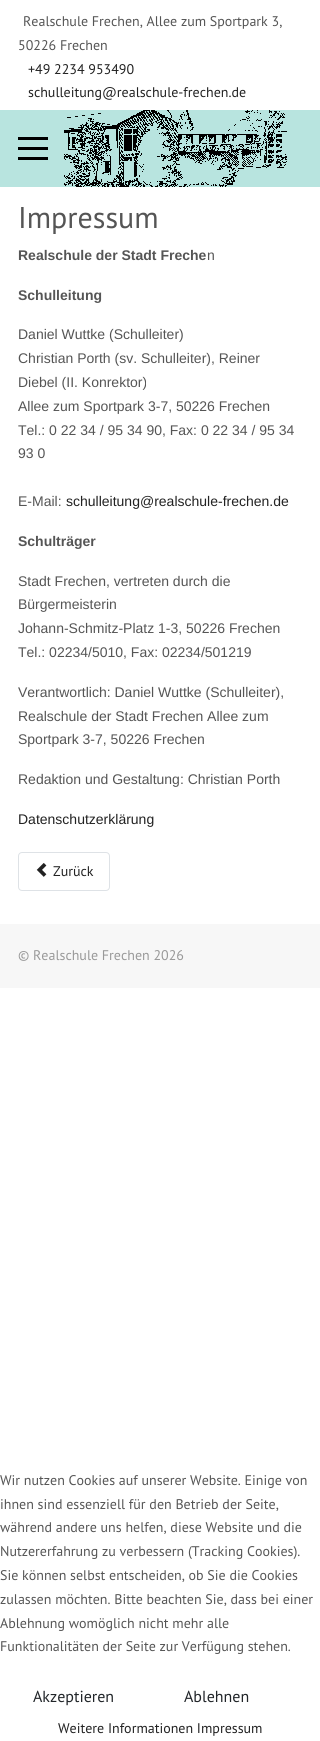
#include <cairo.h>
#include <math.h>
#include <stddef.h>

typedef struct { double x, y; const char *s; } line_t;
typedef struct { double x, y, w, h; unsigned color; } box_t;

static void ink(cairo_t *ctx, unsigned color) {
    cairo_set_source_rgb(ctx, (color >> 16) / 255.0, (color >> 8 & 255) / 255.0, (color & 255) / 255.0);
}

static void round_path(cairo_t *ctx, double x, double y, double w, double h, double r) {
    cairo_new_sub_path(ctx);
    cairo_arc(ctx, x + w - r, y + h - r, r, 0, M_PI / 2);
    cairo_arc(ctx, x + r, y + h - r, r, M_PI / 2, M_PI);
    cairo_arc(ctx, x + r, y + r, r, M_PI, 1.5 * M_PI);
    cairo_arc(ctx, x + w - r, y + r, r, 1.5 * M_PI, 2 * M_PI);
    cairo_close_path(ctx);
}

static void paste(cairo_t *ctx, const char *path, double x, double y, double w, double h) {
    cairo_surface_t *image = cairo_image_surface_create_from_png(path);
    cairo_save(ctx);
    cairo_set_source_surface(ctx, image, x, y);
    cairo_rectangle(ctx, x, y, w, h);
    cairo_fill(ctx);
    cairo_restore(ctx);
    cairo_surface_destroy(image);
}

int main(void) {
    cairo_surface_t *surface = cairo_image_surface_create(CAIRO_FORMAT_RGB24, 320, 1741);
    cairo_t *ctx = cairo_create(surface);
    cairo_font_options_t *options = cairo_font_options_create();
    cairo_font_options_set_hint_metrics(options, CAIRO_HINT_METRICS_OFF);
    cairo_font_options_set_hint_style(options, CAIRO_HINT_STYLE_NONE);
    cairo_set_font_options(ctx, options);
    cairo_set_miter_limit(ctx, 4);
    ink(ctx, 0xFFFFFF);
    cairo_paint(ctx);
    cairo_select_font_face(ctx, "PT Sans", CAIRO_FONT_SLANT_NORMAL, CAIRO_FONT_WEIGHT_NORMAL);
    cairo_set_font_size(ctx, 14);
    ink(ctx, 0x555555);
    cairo_move_to(ctx, 23, 26);
    cairo_show_text(ctx, "Realschule Frechen, Allee zum Sportpark 3,");
    cairo_move_to(ctx, 18, 50);
    cairo_show_text(ctx, "50226 Frechen");
    ink(ctx, 0x222222);
    cairo_move_to(ctx, 28, 74);
    cairo_show_text(ctx, "+49 2234 953490");
    cairo_move_to(ctx, 28, 97);
    cairo_show_text(ctx, "schulleitung@realschule-frechen.de");
    {
        static const box_t items[] = {
            {0, 110, 320, 77, 0xB8E4DF},
            {18, 147, 30, 3, 0x000000},
            {18, 137, 30, 3, 0x000000},
            {18, 157, 30, 3, 0x000000},
        };
        for (size_t i = 0; i < sizeof items / sizeof *items; i++) {
            ink(ctx, items[i].color);
            cairo_rectangle(ctx, items[i].x, items[i].y, items[i].w, items[i].h);
            cairo_fill(ctx);
        }
    }
    paste(ctx, "media/1.png", 64, 110, 223, 77);
    cairo_set_font_size(ctx, 30);
    ink(ctx, 0x555555);
    cairo_move_to(ctx, 18, 228);
    cairo_show_text(ctx, "Impressum");
    cairo_select_font_face(ctx, "Liberation Sans", CAIRO_FONT_SLANT_NORMAL, CAIRO_FONT_WEIGHT_BOLD);
    cairo_set_font_size(ctx, 14);
    cairo_move_to(ctx, 18, 260);
    cairo_show_text(ctx, "Realschule der Stadt Freche");
    cairo_select_font_face(ctx, "Liberation Sans", CAIRO_FONT_SLANT_NORMAL, CAIRO_FONT_WEIGHT_NORMAL);
    cairo_move_to(ctx, 207, 260);
    cairo_show_text(ctx, "n");
    cairo_select_font_face(ctx, "Liberation Sans", CAIRO_FONT_SLANT_NORMAL, CAIRO_FONT_WEIGHT_BOLD);
    cairo_move_to(ctx, 18, 300);
    cairo_show_text(ctx, "Schulleitung");
    cairo_select_font_face(ctx, "Liberation Sans", CAIRO_FONT_SLANT_NORMAL, CAIRO_FONT_WEIGHT_NORMAL);
    {
        static const line_t items[] = {
            {18, 339, "Daniel Wuttke (Schulleiter)"},
            {18, 363, "Christian Porth (sv. Schulleiter), Reiner"},
            {18, 387, "Diebel (II. Konrektor)"},
            {18, 411, "Allee zum Sportpark 3-7, 50226 Frechen"},
            {18, 435, "Tel.: 0 22 34 / 95 34 90, Fax: 0 22 34 / 95 34"},
            {18, 458, "93 0"},
            {18, 506, "E-Mail:"},
        };
        for (size_t i = 0; i < sizeof items / sizeof *items; i++) {
            cairo_move_to(ctx, items[i].x, items[i].y);
            cairo_show_text(ctx, items[i].s);
        }
    }
    ink(ctx, 0x222222);
    cairo_move_to(ctx, 66, 506);
    cairo_show_text(ctx, "schulleitung@realschule-frechen.de");
    cairo_select_font_face(ctx, "Liberation Sans", CAIRO_FONT_SLANT_NORMAL, CAIRO_FONT_WEIGHT_BOLD);
    ink(ctx, 0x555555);
    cairo_move_to(ctx, 18, 546);
    cairo_show_text(ctx, "Schulträger");
    cairo_select_font_face(ctx, "Liberation Sans", CAIRO_FONT_SLANT_NORMAL, CAIRO_FONT_WEIGHT_NORMAL);
    {
        static const line_t items[] = {
            {18, 586, "Stadt Frechen, vertreten durch die"},
            {18, 609, "Bürgermeisterin"},
            {18, 633, "Johann-Schmitz-Platz 1-3, 50226 Frechen"},
            {18, 657, "Tel.: 02234/5010, Fax: 02234/501219"},
            {18, 697, "Verantwortlich: Daniel Wuttke (Schulleiter),"},
            {18, 721, "Realschule der Stadt Frechen Allee zum"},
            {18, 744, "Sportpark 3-7, 50226 Frechen"},
            {18, 784, "Redaktion und Gestaltung: Christian Porth"},
        };
        for (size_t i = 0; i < sizeof items / sizeof *items; i++) {
            cairo_move_to(ctx, items[i].x, items[i].y);
            cairo_show_text(ctx, items[i].s);
        }
    }
    ink(ctx, 0x222222);
    cairo_move_to(ctx, 18, 824);
    cairo_show_text(ctx, "Datenschutzerklärung");
    round_path(ctx, 18.5, 852.5, 91, 38, 3.5);
    ink(ctx, 0xDEE2E6);
    cairo_set_line_width(ctx, 1);
    cairo_stroke(ctx);
    paste(ctx, "media/2.png", 36, 863, 11, 14);
    cairo_select_font_face(ctx, "PT Sans", CAIRO_FONT_SLANT_NORMAL, CAIRO_FONT_WEIGHT_NORMAL);
    ink(ctx, 0x222222);
    cairo_move_to(ctx, 53, 876);
    cairo_show_text(ctx, "Zurück");
    ink(ctx, 0xF7F7F7);
    cairo_rectangle(ctx, 0, 924, 320, 64);
    cairo_fill(ctx);
    ink(ctx, 0x999999);
    cairo_move_to(ctx, 18, 960);
    cairo_show_text(ctx, "© Realschule Frechen 2026");
    ink(ctx, 0x555555);
    {
        static const line_t items[] = {
            {0, 1485, "Wir nutzen Cookies auf unserer Website. Einige von"},
            {0, 1509, "ihnen sind essenziell für den Betrieb der Seite,"},
            {0, 1532, "während andere uns helfen, diese Website und die"},
            {0, 1556, "Nutzererfahrung zu verbessern (Tracking Cookies)."},
            {0, 1580, "Sie können selbst entscheiden, ob Sie die Cookies"},
            {0, 1604, "zulassen möchten. Bitte beachten Sie, dass bei einer"},
            {0, 1628, "Ablehnung womöglich nicht mehr alle"},
            {0, 1651, "Funktionalitäten der Seite zur Verfügung stehen."},
        };
        for (size_t i = 0; i < sizeof items / sizeof *items; i++) {
            cairo_move_to(ctx, items[i].x, items[i].y);
            cairo_show_text(ctx, items[i].s);
        }
    }
    cairo_set_font_size(ctx, 16);
    ink(ctx, 0x212529);
    cairo_move_to(ctx, 33, 1702);
    cairo_show_text(ctx, "Akzeptieren");
    cairo_move_to(ctx, 184, 1702);
    cairo_show_text(ctx, "Ablehnen");
    cairo_set_font_size(ctx, 14);
    ink(ctx, 0x222222);
    cairo_move_to(ctx, 58, 1733);
    cairo_show_text(ctx, "Weitere Informationen Impressum");
    cairo_surface_write_to_png(surface, "image.png");
    cairo_font_options_destroy(options);
    cairo_destroy(ctx);
    cairo_surface_destroy(surface);
    return 0;
}
